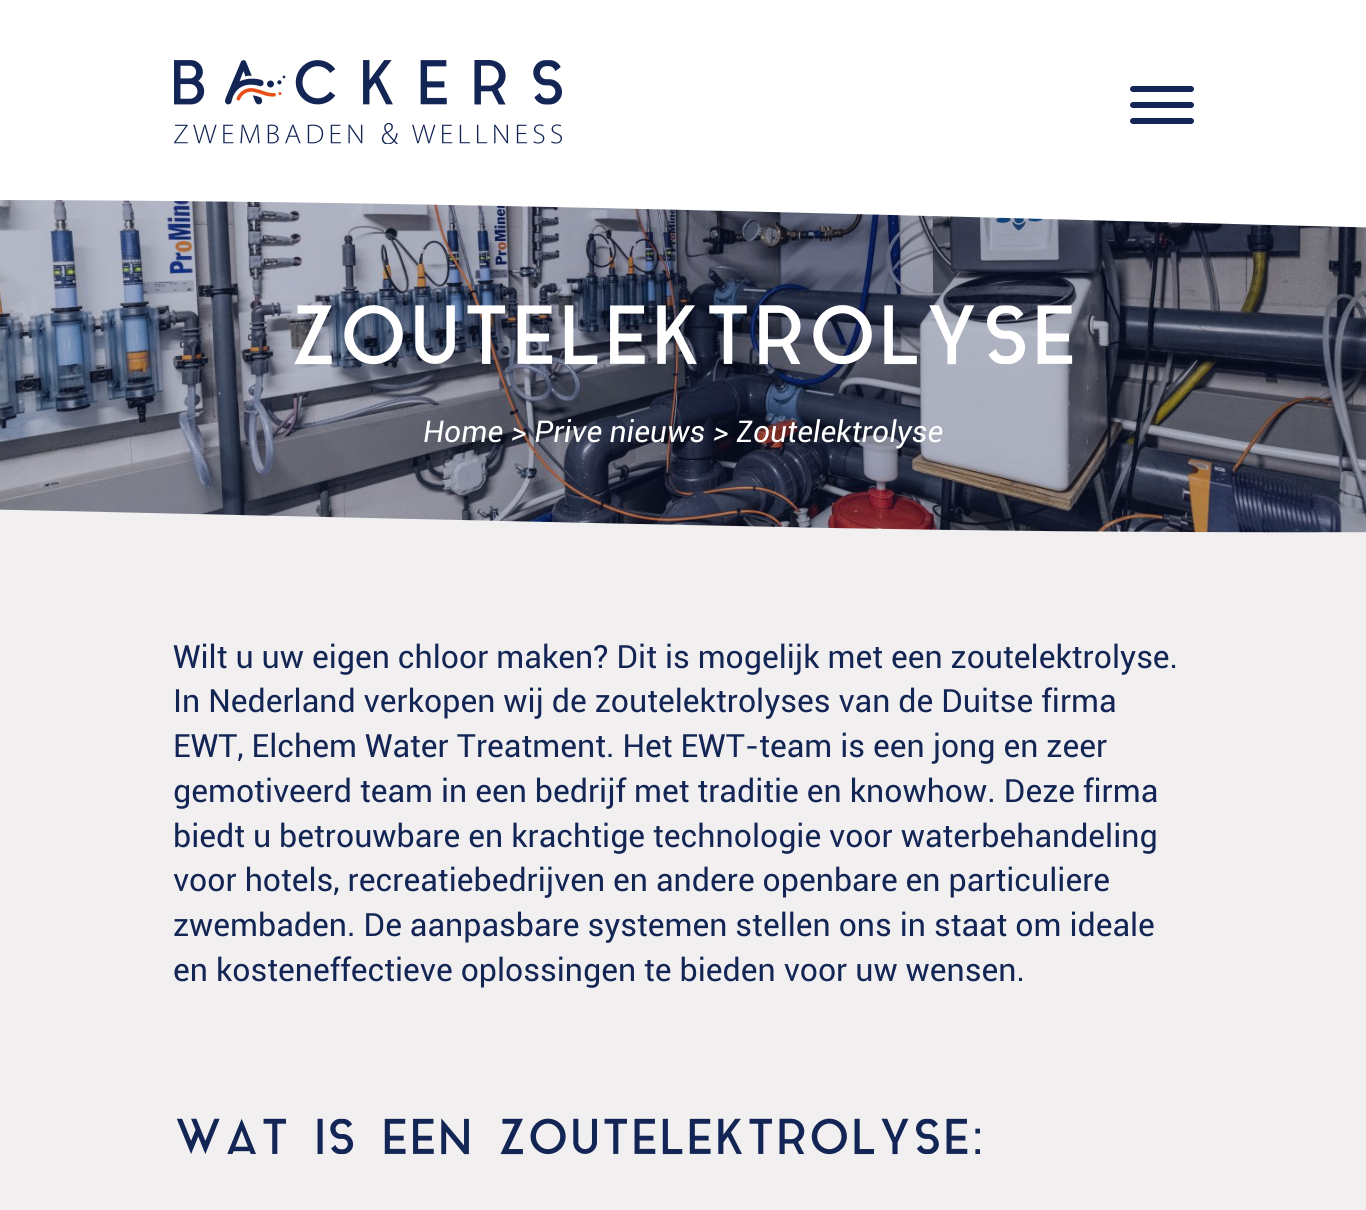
#include <cairo.h>
#include <math.h>
#include <stddef.h>

typedef struct { double x, y; const char *s; } line_t;

static void ink(cairo_t *ctx, unsigned color) {
    cairo_set_source_rgb(ctx, (color >> 16) / 255.0, (color >> 8 & 255) / 255.0, (color & 255) / 255.0);
}

static void round_path(cairo_t *ctx, double x, double y, double w, double h, double r) {
    cairo_new_sub_path(ctx);
    cairo_arc(ctx, x + w - r, y + h - r, r, 0, M_PI / 2);
    cairo_arc(ctx, x + r, y + h - r, r, M_PI / 2, M_PI);
    cairo_arc(ctx, x + r, y + r, r, M_PI, 1.5 * M_PI);
    cairo_arc(ctx, x + w - r, y + r, r, 1.5 * M_PI, 2 * M_PI);
    cairo_close_path(ctx);
}

static void paste(cairo_t *ctx, const char *path, double x, double y, double w, double h) {
    cairo_surface_t *image = cairo_image_surface_create_from_png(path);
    cairo_save(ctx);
    cairo_set_source_surface(ctx, image, x, y);
    cairo_rectangle(ctx, x, y, w, h);
    cairo_fill(ctx);
    cairo_restore(ctx);
    cairo_surface_destroy(image);
}

int main(void) {
    cairo_surface_t *surface = cairo_image_surface_create(CAIRO_FORMAT_RGB24, 1366, 1210);
    cairo_t *ctx = cairo_create(surface);
    cairo_font_options_t *options = cairo_font_options_create();
    cairo_font_options_set_hint_metrics(options, CAIRO_HINT_METRICS_OFF);
    cairo_font_options_set_hint_style(options, CAIRO_HINT_STYLE_NONE);
    cairo_set_font_options(ctx, options);
    cairo_set_miter_limit(ctx, 4);
    ink(ctx, 0xF1EFEF);
    cairo_paint(ctx);
    paste(ctx, "media/2.png", 0, 200, 1366, 333);
    ink(ctx, 0xFFFFFF);
    cairo_new_path(ctx);
    cairo_move_to(ctx, -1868, -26);
    cairo_line_to(ctx, 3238, -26);
    cairo_line_to(ctx, 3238, 99);
    cairo_curve_to(ctx, 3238, 99, 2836, 208, 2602, 222);
    cairo_curve_to(ctx, 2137, 272, 896, 200, -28, 200);
    cairo_curve_to(ctx, -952, 200, -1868, 229, -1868, 229);
    cairo_close_path(ctx);
    cairo_fill(ctx);
    paste(ctx, "media/1.png", 174, 60, 388, 84);
    ink(ctx, 0x132555);
    round_path(ctx, 1130, 86, 64, 6, 3);
    cairo_fill(ctx);
    round_path(ctx, 1130, 102, 64, 6, 3);
    cairo_fill(ctx);
    round_path(ctx, 1130, 118, 64, 6, 3);
    cairo_fill(ctx);
    cairo_save(ctx);
    cairo_rectangle(ctx, 0, 474, 1366, 62);
    cairo_clip(ctx);
    ink(ctx, 0xF1EFEF);
    cairo_new_path(ctx);
    cairo_move_to(ctx, 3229, 938);
    cairo_line_to(ctx, -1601, 845);
    cairo_curve_to(ctx, -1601, 845, -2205, 630, -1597, 551);
    cairo_curve_to(ctx, -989, 471, -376, 504, 831, 528);
    cairo_curve_to(ctx, 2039, 551, 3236, 474, 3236, 474);
    cairo_close_path(ctx);
    cairo_fill(ctx);
    cairo_restore(ctx);
    cairo_select_font_face(ctx, "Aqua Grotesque", CAIRO_FONT_SLANT_NORMAL, CAIRO_FONT_WEIGHT_NORMAL);
    cairo_set_font_size(ctx, 80);
    ink(ctx, 0xFFFFFF);
    cairo_move_to(ctx, 288, 364);
    cairo_show_text(ctx, "ZOUTELEKTROLYSE");
    cairo_select_font_face(ctx, "Roboto", CAIRO_FONT_SLANT_ITALIC, CAIRO_FONT_WEIGHT_NORMAL);
    cairo_set_font_size(ctx, 30);
    {
        static const line_t items[] = {
            {423, 442, "Home"},
            {511, 442, "> Prive nieuws"},
            {713, 442, "> Zoutelektrolyse"},
        };
        for (size_t i = 0; i < sizeof items / sizeof *items; i++) {
            cairo_move_to(ctx, items[i].x, items[i].y);
            cairo_show_text(ctx, items[i].s);
        }
    }
    cairo_select_font_face(ctx, "Roboto", CAIRO_FONT_SLANT_NORMAL, CAIRO_FONT_WEIGHT_NORMAL);
    cairo_set_font_size(ctx, 32);
    ink(ctx, 0x132555);
    {
        static const line_t items[] = {
            {173, 668, "Wilt u uw eigen chloor maken? Dit is mogelijk met een zoutelektrolyse."},
            {173, 712, "In Nederland verkopen wij de zoutelektrolyses van de Duitse firma"},
            {173, 757, "EWT, Elchem Water Treatment. Het EWT-team is een jong en zeer"},
            {173, 802, "gemotiveerd team in een bedrijf met traditie en knowhow. Deze firma"},
            {173, 847, "biedt u betrouwbare en krachtige technologie voor waterbehandeling"},
            {173, 891, "voor hotels, recreatiebedrijven en andere openbare en particuliere"},
            {173, 936, "zwembaden. De aanpasbare systemen stellen ons in staat om ideale"},
            {173, 981, "en kosteneffectieve oplossingen te bieden voor uw wensen."},
        };
        for (size_t i = 0; i < sizeof items / sizeof *items; i++) {
            cairo_move_to(ctx, items[i].x, items[i].y);
            cairo_show_text(ctx, items[i].s);
        }
    }
    cairo_select_font_face(ctx, "Aqua Grotesque", CAIRO_FONT_SLANT_NORMAL, CAIRO_FONT_WEIGHT_NORMAL);
    cairo_set_font_size(ctx, 48);
    cairo_move_to(ctx, 173, 1154);
    cairo_show_text(ctx, "WAT IS EEN ZOUTELEKTROLYSE");
    cairo_select_font_face(ctx, "Liberation Sans", CAIRO_FONT_SLANT_NORMAL, CAIRO_FONT_WEIGHT_NORMAL);
    cairo_move_to(ctx, 971, 1154);
    cairo_show_text(ctx, ":");
    cairo_surface_write_to_png(surface, "image.png");
    cairo_font_options_destroy(options);
    cairo_destroy(ctx);
    cairo_surface_destroy(surface);
    return 0;
}
